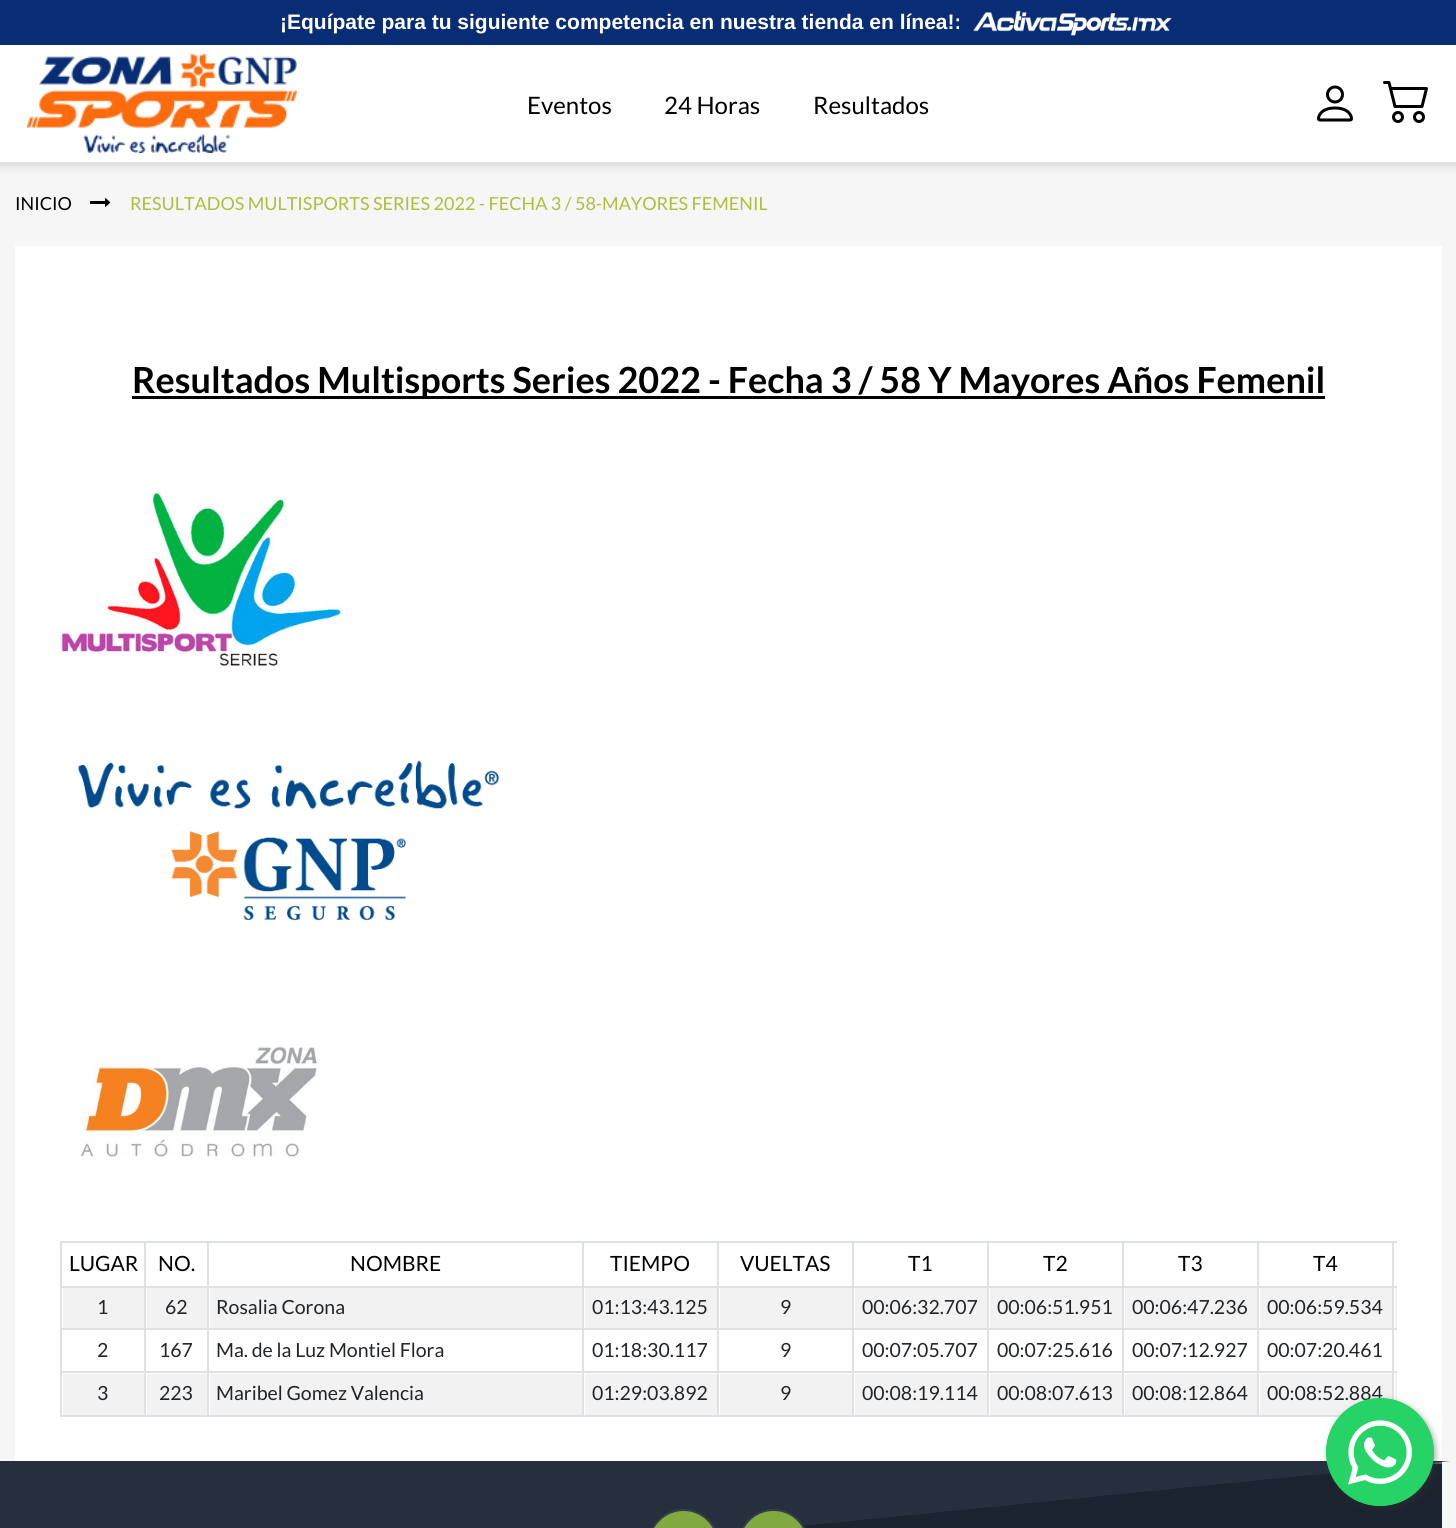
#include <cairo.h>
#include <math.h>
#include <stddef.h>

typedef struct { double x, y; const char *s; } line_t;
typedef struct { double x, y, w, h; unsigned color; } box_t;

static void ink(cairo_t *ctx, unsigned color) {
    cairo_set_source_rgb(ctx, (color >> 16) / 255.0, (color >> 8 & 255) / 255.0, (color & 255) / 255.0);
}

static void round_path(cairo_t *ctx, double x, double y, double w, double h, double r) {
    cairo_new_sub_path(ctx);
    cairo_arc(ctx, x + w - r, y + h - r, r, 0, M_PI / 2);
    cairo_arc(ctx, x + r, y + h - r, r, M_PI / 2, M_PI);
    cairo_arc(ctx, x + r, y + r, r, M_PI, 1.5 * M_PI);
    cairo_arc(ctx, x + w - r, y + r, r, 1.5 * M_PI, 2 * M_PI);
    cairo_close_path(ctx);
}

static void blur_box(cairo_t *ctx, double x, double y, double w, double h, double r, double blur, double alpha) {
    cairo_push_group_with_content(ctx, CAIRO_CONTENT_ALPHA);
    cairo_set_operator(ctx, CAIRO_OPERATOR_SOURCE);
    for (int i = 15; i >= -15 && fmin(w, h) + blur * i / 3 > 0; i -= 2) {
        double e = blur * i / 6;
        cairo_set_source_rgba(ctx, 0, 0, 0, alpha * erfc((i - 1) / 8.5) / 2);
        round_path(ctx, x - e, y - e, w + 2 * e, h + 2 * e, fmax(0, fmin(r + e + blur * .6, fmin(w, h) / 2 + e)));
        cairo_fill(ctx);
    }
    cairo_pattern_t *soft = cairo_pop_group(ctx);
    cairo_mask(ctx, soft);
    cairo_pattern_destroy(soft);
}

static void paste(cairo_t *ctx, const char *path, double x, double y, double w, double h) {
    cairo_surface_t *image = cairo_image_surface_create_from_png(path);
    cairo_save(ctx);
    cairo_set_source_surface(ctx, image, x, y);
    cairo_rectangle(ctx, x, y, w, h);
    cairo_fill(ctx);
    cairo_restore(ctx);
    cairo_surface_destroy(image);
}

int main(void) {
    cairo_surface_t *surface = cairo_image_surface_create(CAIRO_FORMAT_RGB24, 1456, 1528);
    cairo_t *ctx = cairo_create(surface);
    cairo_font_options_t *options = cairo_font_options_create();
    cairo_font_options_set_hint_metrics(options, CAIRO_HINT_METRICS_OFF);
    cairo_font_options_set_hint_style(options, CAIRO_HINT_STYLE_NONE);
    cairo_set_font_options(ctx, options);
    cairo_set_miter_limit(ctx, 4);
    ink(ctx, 0xF6F6F6);
    cairo_paint(ctx);
    ink(ctx, 0x6D6D6D);
    blur_box(ctx, -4, -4, 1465, 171, 0, 4.5, 0.2);
    ink(ctx, 0xFFFFFF);
    cairo_rectangle(ctx, 0, 45, 1456, 117);
    cairo_fill(ctx);
    ink(ctx, 0x092D74);
    cairo_rectangle(ctx, 0, 0, 1456, 45);
    cairo_fill(ctx);
    cairo_select_font_face(ctx, "Liberation Sans", CAIRO_FONT_SLANT_NORMAL, CAIRO_FONT_WEIGHT_BOLD);
    cairo_set_font_size(ctx, 21);
    ink(ctx, 0xFFFFFF);
    cairo_move_to(ctx, 280, 29);
    cairo_show_text(ctx, "¡Equípate para tu siguiente competencia en nuestra tienda en línea!:");
    paste(ctx, "media/1.png", 973, 10, 199, 26);
    paste(ctx, "media/2.png", 27, 54, 270, 99);
    cairo_select_font_face(ctx, "Lato", CAIRO_FONT_SLANT_NORMAL, CAIRO_FONT_WEIGHT_NORMAL);
    cairo_set_font_size(ctx, 24);
    ink(ctx, 0x000000);
    {
        static const line_t items[] = {
            {527, 114, "Eventos"},
            {664, 114, "24 Horas"},
            {813, 114, "Resultados"},
        };
        for (size_t i = 0; i < sizeof items / sizeof *items; i++) {
            cairo_move_to(ctx, items[i].x, items[i].y);
            cairo_show_text(ctx, items[i].s);
        }
    }
    paste(ctx, "media/3.png", 1317, 85, 36, 37);
    paste(ctx, "media/4.png", 1383, 81, 45, 42);
    cairo_set_font_size(ctx, 18);
    cairo_move_to(ctx, 15, 210);
    cairo_show_text(ctx, "INICIO");
    paste(ctx, "media/5.png", 90, 198, 21, 9);
    ink(ctx, 0xAFBE3C);
    cairo_move_to(ctx, 130, 210);
    cairo_show_text(ctx, "RESULTADOS MULTISPORTS SERIES 2022 - FECHA 3 / 58-MAYORES FEMENIL");
    ink(ctx, 0xFFFFFF);
    cairo_rectangle(ctx, 15, 246, 1427, 1215);
    cairo_fill(ctx);
    ink(ctx, 0x000000);
    cairo_rectangle(ctx, 132, 396, 1193, 3);
    cairo_fill(ctx);
    cairo_select_font_face(ctx, "Lato", CAIRO_FONT_SLANT_NORMAL, CAIRO_FONT_WEIGHT_BOLD);
    cairo_set_font_size(ctx, 36);
    cairo_move_to(ctx, 132, 393);
    cairo_show_text(ctx, "Resultados Multisports Series 2022 - Fecha 3 / 58 Y Mayores Años Femenil");
    paste(ctx, "media/6.png", 60, 490, 284, 177);
    paste(ctx, "media/7.png", 78, 760, 422, 161);
    paste(ctx, "media/8.png", 81, 1047, 240, 110);
    ink(ctx, 0xDEE2E6);
    cairo_rectangle(ctx, 60, 1241, 1337, 2);
    cairo_fill(ctx);
    cairo_select_font_face(ctx, "Lato", CAIRO_FONT_SLANT_NORMAL, CAIRO_FONT_WEIGHT_NORMAL);
    cairo_set_font_size(ctx, 21);
    ink(ctx, 0x000000);
    {
        static const line_t items[] = {
            {69, 1271, "LUGAR"},
            {158, 1271, "NO."},
            {350, 1271, "NOMBRE"},
            {610, 1271, "TIEMPO"},
            {740, 1271, "VUELTAS"},
            {908, 1271, "T1"},
            {1043, 1271, "T2"},
            {1178, 1271, "T3"},
            {1313, 1271, "T4"},
        };
        for (size_t i = 0; i < sizeof items / sizeof *items; i++) {
            cairo_move_to(ctx, items[i].x, items[i].y);
            cairo_show_text(ctx, items[i].s);
        }
    }
    {
        static const box_t items[] = {
            {1395, 1287, 2, 42, 0xF2F2F2},
            {60, 1286, 1337, 2, 0xE0E0E0},
            {63, 1288, 81, 40, 0xF2F2F2},
            {60, 1328, 1337, 2, 0xE0E0E0},
            {60, 1371, 1337, 2, 0xE0E0E0},
            {60, 1415, 1281, 2, 0xDEE2E6},
            {144, 1371, 2, 45, 0xDEE2E6},
            {144, 1328, 2, 45, 0xDEE2E6},
            {144, 1241, 2, 88, 0xDEE2E6},
            {60, 1371, 2, 45, 0xDEE2E6},
            {60, 1328, 2, 45, 0xDEE2E6},
            {60, 1241, 2, 88, 0xDEE2E6},
        };
        for (size_t i = 0; i < sizeof items / sizeof *items; i++) {
            ink(ctx, items[i].color);
            cairo_rectangle(ctx, items[i].x, items[i].y, items[i].w, items[i].h);
            cairo_fill(ctx);
        }
    }
    cairo_set_font_size(ctx, 19.5);
    ink(ctx, 0x212529);
    cairo_move_to(ctx, 97, 1314);
    cairo_show_text(ctx, "1");
    {
        static const box_t items[] = {
            {147, 1288, 60, 40, 0xF2F2F2},
            {207, 1371, 2, 45, 0xDEE2E6},
            {207, 1328, 2, 45, 0xDEE2E6},
            {207, 1241, 2, 88, 0xDEE2E6},
        };
        for (size_t i = 0; i < sizeof items / sizeof *items; i++) {
            ink(ctx, items[i].color);
            cairo_rectangle(ctx, items[i].x, items[i].y, items[i].w, items[i].h);
            cairo_fill(ctx);
        }
    }
    ink(ctx, 0x212529);
    cairo_move_to(ctx, 165, 1314);
    cairo_show_text(ctx, "62");
    {
        static const box_t items[] = {
            {210, 1288, 372, 40, 0xF2F2F2},
            {582, 1371, 2, 45, 0xDEE2E6},
            {582, 1328, 2, 45, 0xDEE2E6},
            {582, 1241, 2, 88, 0xDEE2E6},
        };
        for (size_t i = 0; i < sizeof items / sizeof *items; i++) {
            ink(ctx, items[i].color);
            cairo_rectangle(ctx, items[i].x, items[i].y, items[i].w, items[i].h);
            cairo_fill(ctx);
        }
    }
    ink(ctx, 0x212529);
    cairo_move_to(ctx, 216, 1314);
    cairo_show_text(ctx, "Rosalia Corona");
    {
        static const box_t items[] = {
            {585, 1288, 132, 40, 0xF2F2F2},
            {717, 1371, 2, 45, 0xDEE2E6},
            {717, 1328, 2, 45, 0xDEE2E6},
            {717, 1241, 2, 88, 0xDEE2E6},
        };
        for (size_t i = 0; i < sizeof items / sizeof *items; i++) {
            ink(ctx, items[i].color);
            cairo_rectangle(ctx, items[i].x, items[i].y, items[i].w, items[i].h);
            cairo_fill(ctx);
        }
    }
    ink(ctx, 0x212529);
    cairo_move_to(ctx, 592, 1314);
    cairo_show_text(ctx, "01:13:43.125");
    {
        static const box_t items[] = {
            {720, 1288, 132, 40, 0xF2F2F2},
            {852, 1371, 2, 45, 0xDEE2E6},
            {852, 1328, 2, 45, 0xDEE2E6},
            {852, 1241, 2, 88, 0xDEE2E6},
        };
        for (size_t i = 0; i < sizeof items / sizeof *items; i++) {
            ink(ctx, items[i].color);
            cairo_rectangle(ctx, items[i].x, items[i].y, items[i].w, items[i].h);
            cairo_fill(ctx);
        }
    }
    ink(ctx, 0x212529);
    cairo_move_to(ctx, 780, 1314);
    cairo_show_text(ctx, "9");
    {
        static const box_t items[] = {
            {855, 1288, 132, 40, 0xF2F2F2},
            {987, 1371, 2, 45, 0xDEE2E6},
            {987, 1328, 2, 45, 0xDEE2E6},
            {987, 1241, 2, 88, 0xDEE2E6},
        };
        for (size_t i = 0; i < sizeof items / sizeof *items; i++) {
            ink(ctx, items[i].color);
            cairo_rectangle(ctx, items[i].x, items[i].y, items[i].w, items[i].h);
            cairo_fill(ctx);
        }
    }
    ink(ctx, 0x212529);
    cairo_move_to(ctx, 862, 1314);
    cairo_show_text(ctx, "00:06:32.707");
    {
        static const box_t items[] = {
            {990, 1288, 132, 40, 0xF2F2F2},
            {1122, 1371, 2, 45, 0xDEE2E6},
            {1122, 1328, 2, 45, 0xDEE2E6},
            {1122, 1241, 2, 88, 0xDEE2E6},
        };
        for (size_t i = 0; i < sizeof items / sizeof *items; i++) {
            ink(ctx, items[i].color);
            cairo_rectangle(ctx, items[i].x, items[i].y, items[i].w, items[i].h);
            cairo_fill(ctx);
        }
    }
    ink(ctx, 0x212529);
    cairo_move_to(ctx, 997, 1314);
    cairo_show_text(ctx, "00:06:51.951");
    {
        static const box_t items[] = {
            {1125, 1288, 132, 40, 0xF2F2F2},
            {1257, 1371, 2, 45, 0xDEE2E6},
            {1257, 1328, 2, 45, 0xDEE2E6},
            {1257, 1241, 2, 88, 0xDEE2E6},
        };
        for (size_t i = 0; i < sizeof items / sizeof *items; i++) {
            ink(ctx, items[i].color);
            cairo_rectangle(ctx, items[i].x, items[i].y, items[i].w, items[i].h);
            cairo_fill(ctx);
        }
    }
    ink(ctx, 0x212529);
    cairo_move_to(ctx, 1132, 1314);
    cairo_show_text(ctx, "00:06:47.236");
    {
        static const box_t items[] = {
            {1260, 1288, 132, 40, 0xF2F2F2},
            {1392, 1371, 2, 29, 0xDEE2E6},
            {1392, 1328, 2, 45, 0xDEE2E6},
            {1392, 1241, 2, 88, 0xDEE2E6},
        };
        for (size_t i = 0; i < sizeof items / sizeof *items; i++) {
            ink(ctx, items[i].color);
            cairo_rectangle(ctx, items[i].x, items[i].y, items[i].w, items[i].h);
            cairo_fill(ctx);
        }
    }
    ink(ctx, 0x212529);
    {
        static const line_t items[] = {
            {1267, 1314, "00:06:59.534"},
            {97, 1357, "2"},
            {159, 1357, "167"},
            {216, 1357, "Ma. de la Luz Montiel Flora"},
            {592, 1357, "01:18:30.117"},
            {780, 1357, "9"},
            {862, 1357, "00:07:05.707"},
            {997, 1357, "00:07:25.616"},
            {1132, 1357, "00:07:12.927"},
            {1267, 1357, "00:07:20.461"},
        };
        for (size_t i = 0; i < sizeof items / sizeof *items; i++) {
            cairo_move_to(ctx, items[i].x, items[i].y);
            cairo_show_text(ctx, items[i].s);
        }
    }
    ink(ctx, 0xF2F2F2);
    cairo_rectangle(ctx, 1395, 1374, 2, 27);
    cairo_fill(ctx);
    cairo_rectangle(ctx, 63, 1374, 81, 41);
    cairo_fill(ctx);
    ink(ctx, 0x212529);
    cairo_move_to(ctx, 97, 1400);
    cairo_show_text(ctx, "3");
    ink(ctx, 0xF2F2F2);
    cairo_rectangle(ctx, 147, 1374, 60, 41);
    cairo_fill(ctx);
    ink(ctx, 0x212529);
    cairo_move_to(ctx, 159, 1400);
    cairo_show_text(ctx, "223");
    ink(ctx, 0xF2F2F2);
    cairo_rectangle(ctx, 210, 1374, 372, 41);
    cairo_fill(ctx);
    ink(ctx, 0x212529);
    cairo_move_to(ctx, 216, 1400);
    cairo_show_text(ctx, "Maribel Gomez Valencia");
    ink(ctx, 0xF2F2F2);
    cairo_rectangle(ctx, 585, 1374, 132, 41);
    cairo_fill(ctx);
    ink(ctx, 0x212529);
    cairo_move_to(ctx, 592, 1400);
    cairo_show_text(ctx, "01:29:03.892");
    ink(ctx, 0xF2F2F2);
    cairo_rectangle(ctx, 720, 1374, 132, 41);
    cairo_fill(ctx);
    ink(ctx, 0x212529);
    cairo_move_to(ctx, 780, 1400);
    cairo_show_text(ctx, "9");
    ink(ctx, 0xF2F2F2);
    cairo_rectangle(ctx, 855, 1374, 132, 41);
    cairo_fill(ctx);
    ink(ctx, 0x212529);
    cairo_move_to(ctx, 862, 1400);
    cairo_show_text(ctx, "00:08:19.114");
    ink(ctx, 0xF2F2F2);
    cairo_rectangle(ctx, 990, 1374, 132, 41);
    cairo_fill(ctx);
    ink(ctx, 0x212529);
    cairo_move_to(ctx, 997, 1400);
    cairo_show_text(ctx, "00:08:07.613");
    ink(ctx, 0xF2F2F2);
    cairo_rectangle(ctx, 1125, 1374, 132, 41);
    cairo_fill(ctx);
    ink(ctx, 0x212529);
    cairo_move_to(ctx, 1132, 1400);
    cairo_show_text(ctx, "00:08:12.864");
    ink(ctx, 0xF2F2F2);
    cairo_rectangle(ctx, 1260, 1374, 132, 41);
    cairo_fill(ctx);
    ink(ctx, 0x212529);
    cairo_move_to(ctx, 1267, 1400);
    cairo_show_text(ctx, "00:08:52.884");
    ink(ctx, 0x1B232E);
    cairo_rectangle(ctx, 803, 1464, 639, 64);
    cairo_fill(ctx);
    ink(ctx, 0x626262);
    cairo_rectangle(ctx, 1432, 1461, 10, 3);
    cairo_fill(ctx);
    ink(ctx, 0x252F3E);
    cairo_new_path(ctx);
    cairo_move_to(ctx, 0, 1461);
    cairo_line_to(ctx, 0, 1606);
    cairo_line_to(ctx, 1450, 1461);
    cairo_close_path(ctx);
    cairo_fill(ctx);
    ink(ctx, 0x3C3C3C);
    blur_box(ctx, 1328, 1400, 108, 108, 54, 3, 0.4);
    ink(ctx, 0x25D366);
    cairo_arc(ctx, 1380, 1452, 54, 0, 2 * M_PI);
    cairo_fill(ctx);
    paste(ctx, "media/9.png", 1326, 1398, 108, 108);
    ink(ctx, 0x80A93F);
    round_path(ctx, 649, 1510, 69, 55, 34.5);
    cairo_fill_preserve(ctx);
    ink(ctx, 0x383E48);
    cairo_stroke(ctx);
    ink(ctx, 0x80A93F);
    round_path(ctx, 739, 1510, 69, 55, 34.5);
    cairo_fill_preserve(ctx);
    ink(ctx, 0x383E48);
    cairo_stroke(ctx);
    cairo_surface_write_to_png(surface, "image.png");
    cairo_font_options_destroy(options);
    cairo_destroy(ctx);
    cairo_surface_destroy(surface);
    return 0;
}
